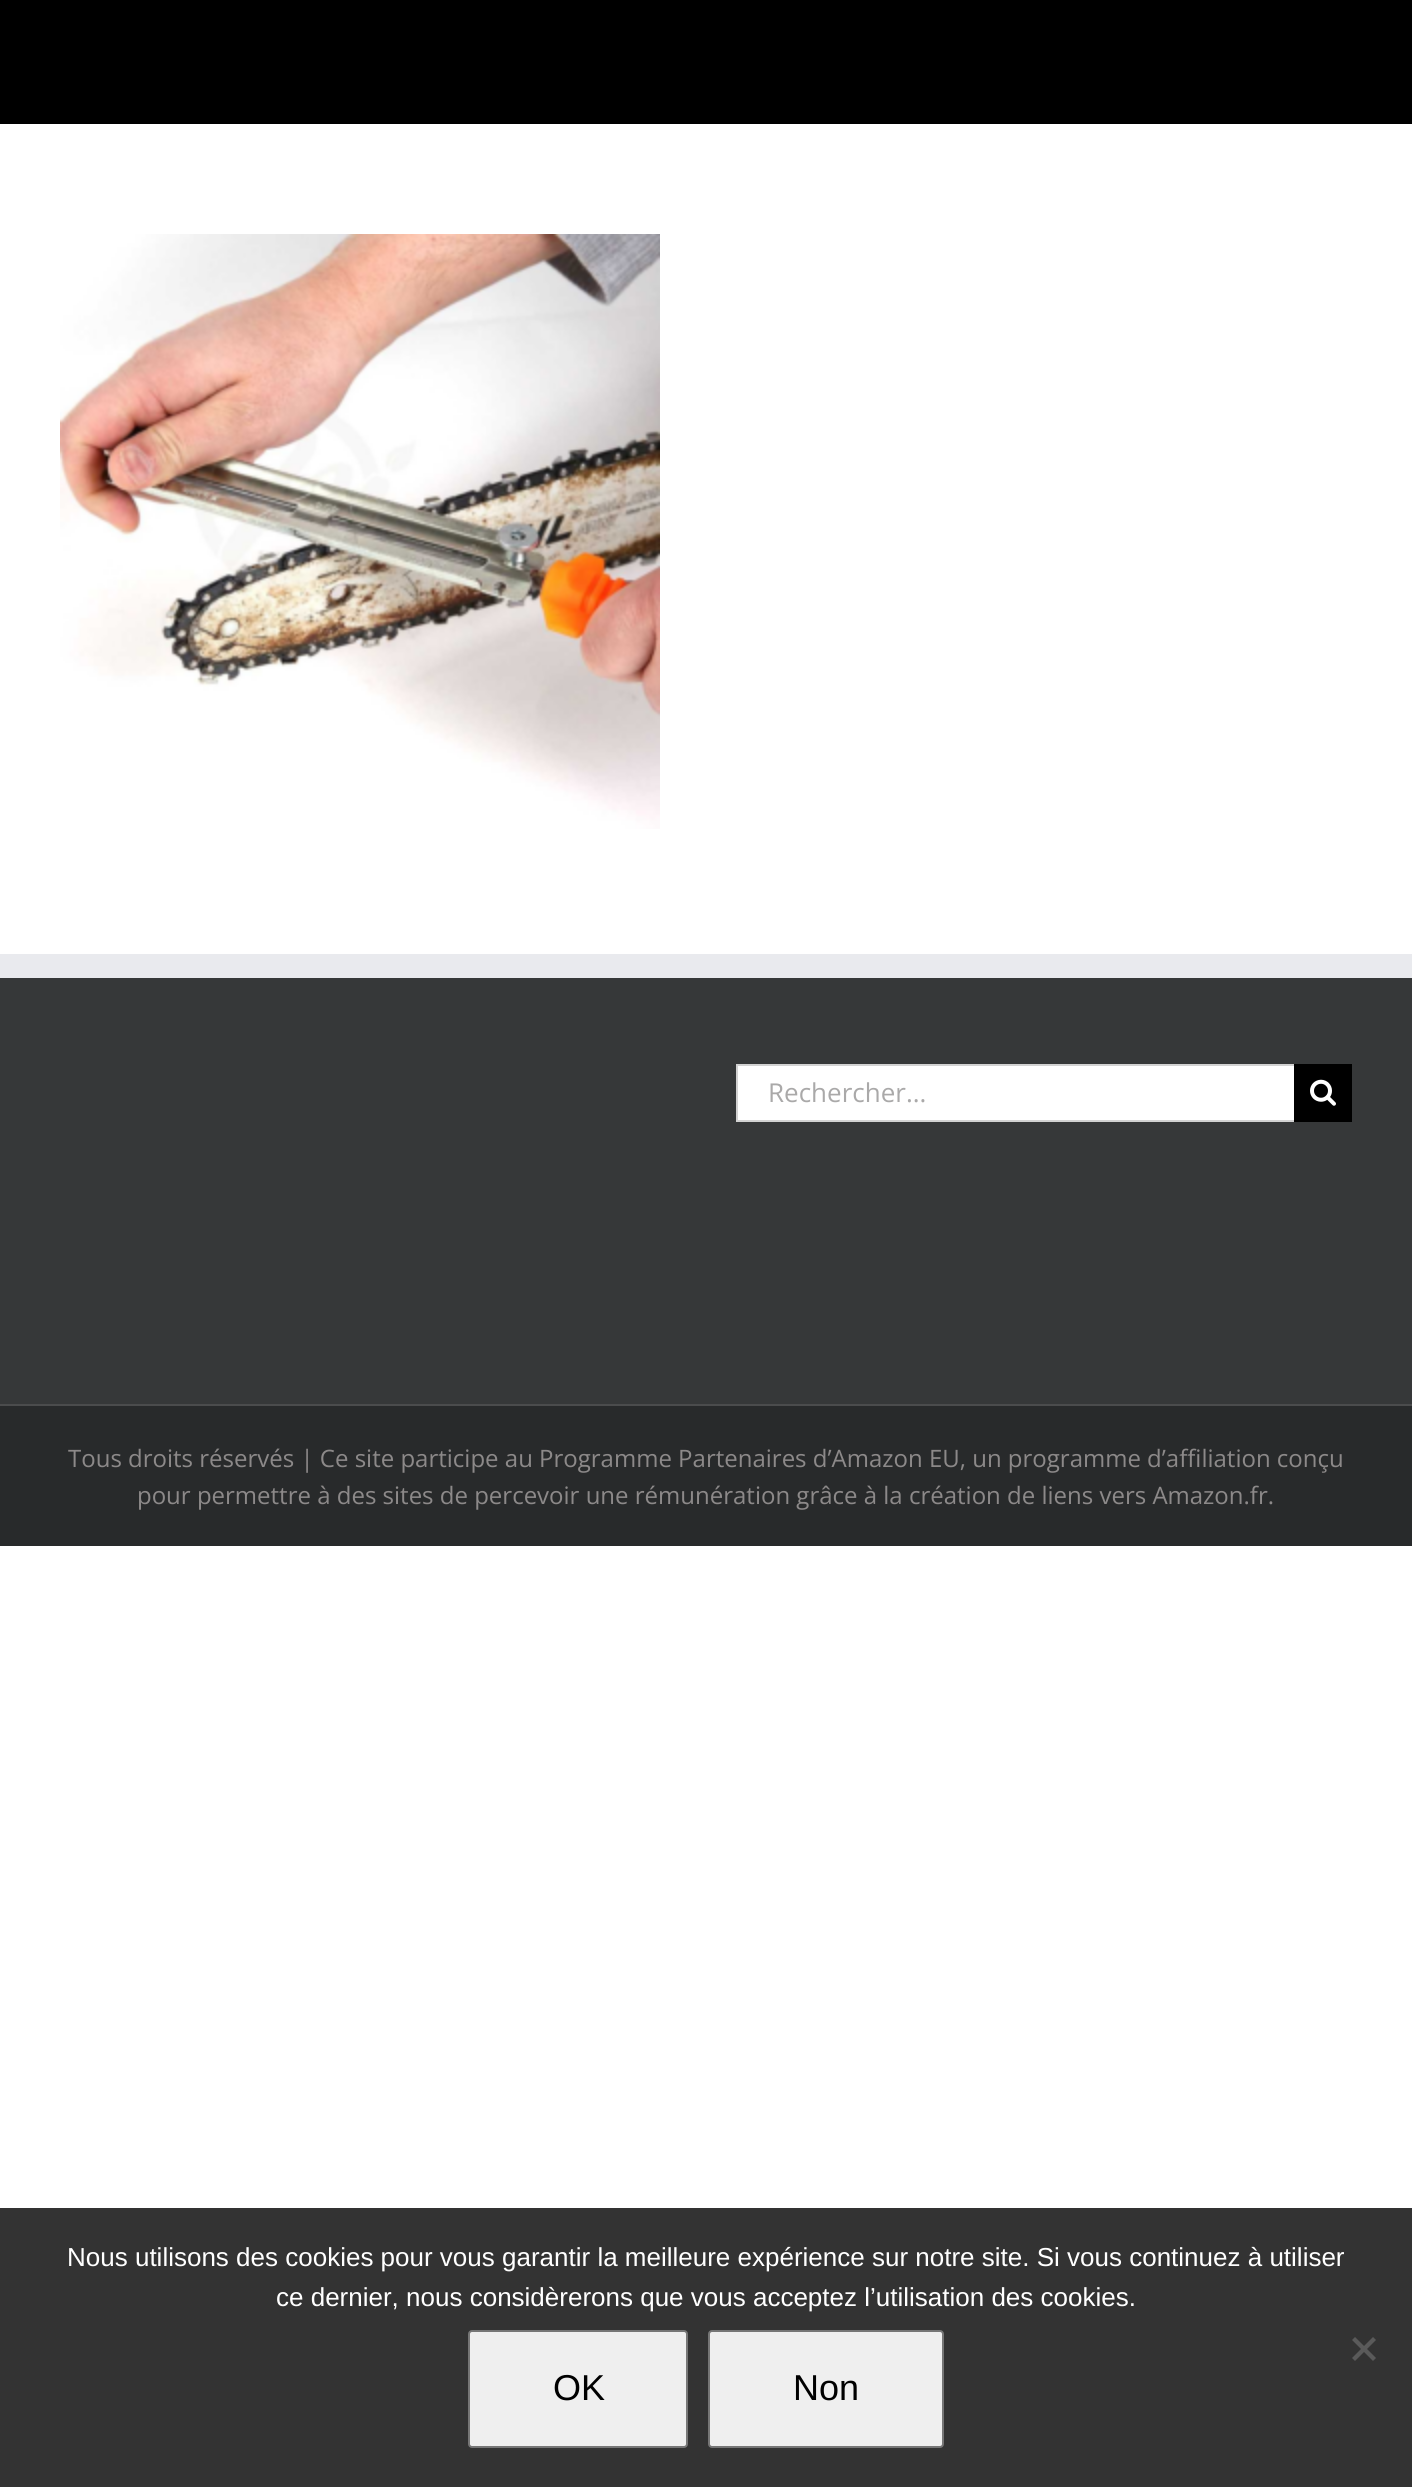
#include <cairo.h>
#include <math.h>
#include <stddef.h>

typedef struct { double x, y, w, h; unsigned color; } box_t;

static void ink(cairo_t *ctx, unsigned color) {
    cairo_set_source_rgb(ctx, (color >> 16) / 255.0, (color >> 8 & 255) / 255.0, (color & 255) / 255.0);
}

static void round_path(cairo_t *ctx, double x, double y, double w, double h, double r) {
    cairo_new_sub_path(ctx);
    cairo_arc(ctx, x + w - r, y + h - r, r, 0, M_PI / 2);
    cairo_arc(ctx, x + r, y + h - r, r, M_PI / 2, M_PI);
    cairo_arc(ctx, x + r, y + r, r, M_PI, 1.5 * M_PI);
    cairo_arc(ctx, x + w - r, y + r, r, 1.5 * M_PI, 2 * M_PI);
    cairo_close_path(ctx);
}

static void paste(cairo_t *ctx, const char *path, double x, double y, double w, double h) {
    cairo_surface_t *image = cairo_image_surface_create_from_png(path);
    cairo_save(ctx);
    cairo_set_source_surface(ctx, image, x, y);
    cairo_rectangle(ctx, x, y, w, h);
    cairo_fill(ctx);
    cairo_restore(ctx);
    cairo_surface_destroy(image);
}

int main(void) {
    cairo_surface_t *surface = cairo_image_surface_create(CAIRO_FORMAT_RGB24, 1412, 2487);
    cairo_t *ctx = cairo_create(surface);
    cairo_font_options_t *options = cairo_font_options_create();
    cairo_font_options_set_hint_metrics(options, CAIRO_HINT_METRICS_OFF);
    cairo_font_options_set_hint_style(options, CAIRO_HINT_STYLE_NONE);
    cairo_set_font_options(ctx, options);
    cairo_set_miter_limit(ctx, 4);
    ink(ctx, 0xFFFFFF);
    cairo_paint(ctx);
    ink(ctx, 0x000000);
    cairo_rectangle(ctx, 0, 0, 1412, 124);
    cairo_fill(ctx);
    paste(ctx, "media/1.png", 60, 234, 600, 595);
    {
        static const box_t items[] = {
            {0, 978, 1412, 426, 0x363839},
            {0, 954, 1412, 24, 0xE9EAEE},
            {738, 1066, 556, 54, 0xFFFFFF},
            {736, 1064, 558, 2, 0xD2D2D2},
            {736, 1120, 558, 2, 0xD2D2D2},
            {736, 1064, 2, 58, 0xD2D2D2},
        };
        for (size_t i = 0; i < sizeof items / sizeof *items; i++) {
            ink(ctx, items[i].color);
            cairo_rectangle(ctx, items[i].x, items[i].y, items[i].w, items[i].h);
            cairo_fill(ctx);
        }
    }
    cairo_select_font_face(ctx, "Open Sans", CAIRO_FONT_SLANT_NORMAL, CAIRO_FONT_WEIGHT_NORMAL);
    cairo_set_font_size(ctx, 26);
    ink(ctx, 0xAAA9A9);
    cairo_move_to(ctx, 768, 1102);
    cairo_show_text(ctx, "Rechercher...");
    ink(ctx, 0x000000);
    cairo_rectangle(ctx, 1294, 1064, 58, 58);
    cairo_fill(ctx);
    paste(ctx, "media/2.png", 1310, 1079, 26, 27);
    ink(ctx, 0x282A2B);
    cairo_rectangle(ctx, 0, 1406, 1412, 140);
    cairo_fill(ctx);
    ink(ctx, 0x4B4C4D);
    cairo_rectangle(ctx, 0, 1404, 1412, 2);
    cairo_fill(ctx);
    cairo_set_font_size(ctx, 24);
    ink(ctx, 0x8C8989);
    cairo_move_to(ctx, 68, 1467);
    cairo_show_text(ctx, "Tous droits réservés | Ce site participe au Programme Partenaires d’Amazon EU, un programme d’affiliation conçu");
    cairo_move_to(ctx, 137, 1504);
    cairo_show_text(ctx, "pour permettre à des sites de percevoir une rémunération grâce à la création de liens vers Amazon.fr.");
    ink(ctx, 0x333333);
    cairo_rectangle(ctx, 0, 2208, 1412, 279);
    cairo_fill(ctx);
    cairo_select_font_face(ctx, "Liberation Sans", CAIRO_FONT_SLANT_NORMAL, CAIRO_FONT_WEIGHT_NORMAL);
    cairo_set_font_size(ctx, 26);
    ink(ctx, 0xFFFFFF);
    cairo_move_to(ctx, 67, 2266);
    cairo_show_text(ctx, "Nous utilisons des cookies pour vous garantir la meilleure expérience sur notre site. Si vous continuez à utiliser");
    cairo_move_to(ctx, 276, 2306);
    cairo_show_text(ctx, "ce dernier, nous considèrerons que vous acceptez l’utilisation des cookies.");
    ink(ctx, 0x5A5A5A);
    cairo_new_path(ctx);
    cairo_move_to(ctx, 1373, 2337);
    cairo_line_to(ctx, 1376, 2340);
    cairo_line_to(ctx, 1355, 2361);
    cairo_line_to(ctx, 1352, 2358);
    cairo_close_path(ctx);
    cairo_fill(ctx);
    cairo_new_path(ctx);
    cairo_move_to(ctx, 1352, 2340);
    cairo_line_to(ctx, 1355, 2337);
    cairo_line_to(ctx, 1376, 2358);
    cairo_line_to(ctx, 1373, 2361);
    cairo_close_path(ctx);
    cairo_fill(ctx);
    ink(ctx, 0xEFEFEF);
    round_path(ctx, 469, 2331, 218, 116, 3);
    cairo_fill_preserve(ctx);
    ink(ctx, 0x767676);
    cairo_stroke(ctx);
    cairo_set_font_size(ctx, 36);
    ink(ctx, 0x000000);
    cairo_move_to(ctx, 553, 2400);
    cairo_show_text(ctx, "OK");
    ink(ctx, 0xEFEFEF);
    round_path(ctx, 709, 2331, 234, 116, 3);
    cairo_fill_preserve(ctx);
    ink(ctx, 0x767676);
    cairo_stroke(ctx);
    ink(ctx, 0x000000);
    cairo_move_to(ctx, 793, 2400);
    cairo_show_text(ctx, "Non");
    cairo_surface_write_to_png(surface, "image.png");
    cairo_font_options_destroy(options);
    cairo_destroy(ctx);
    cairo_surface_destroy(surface);
    return 0;
}
